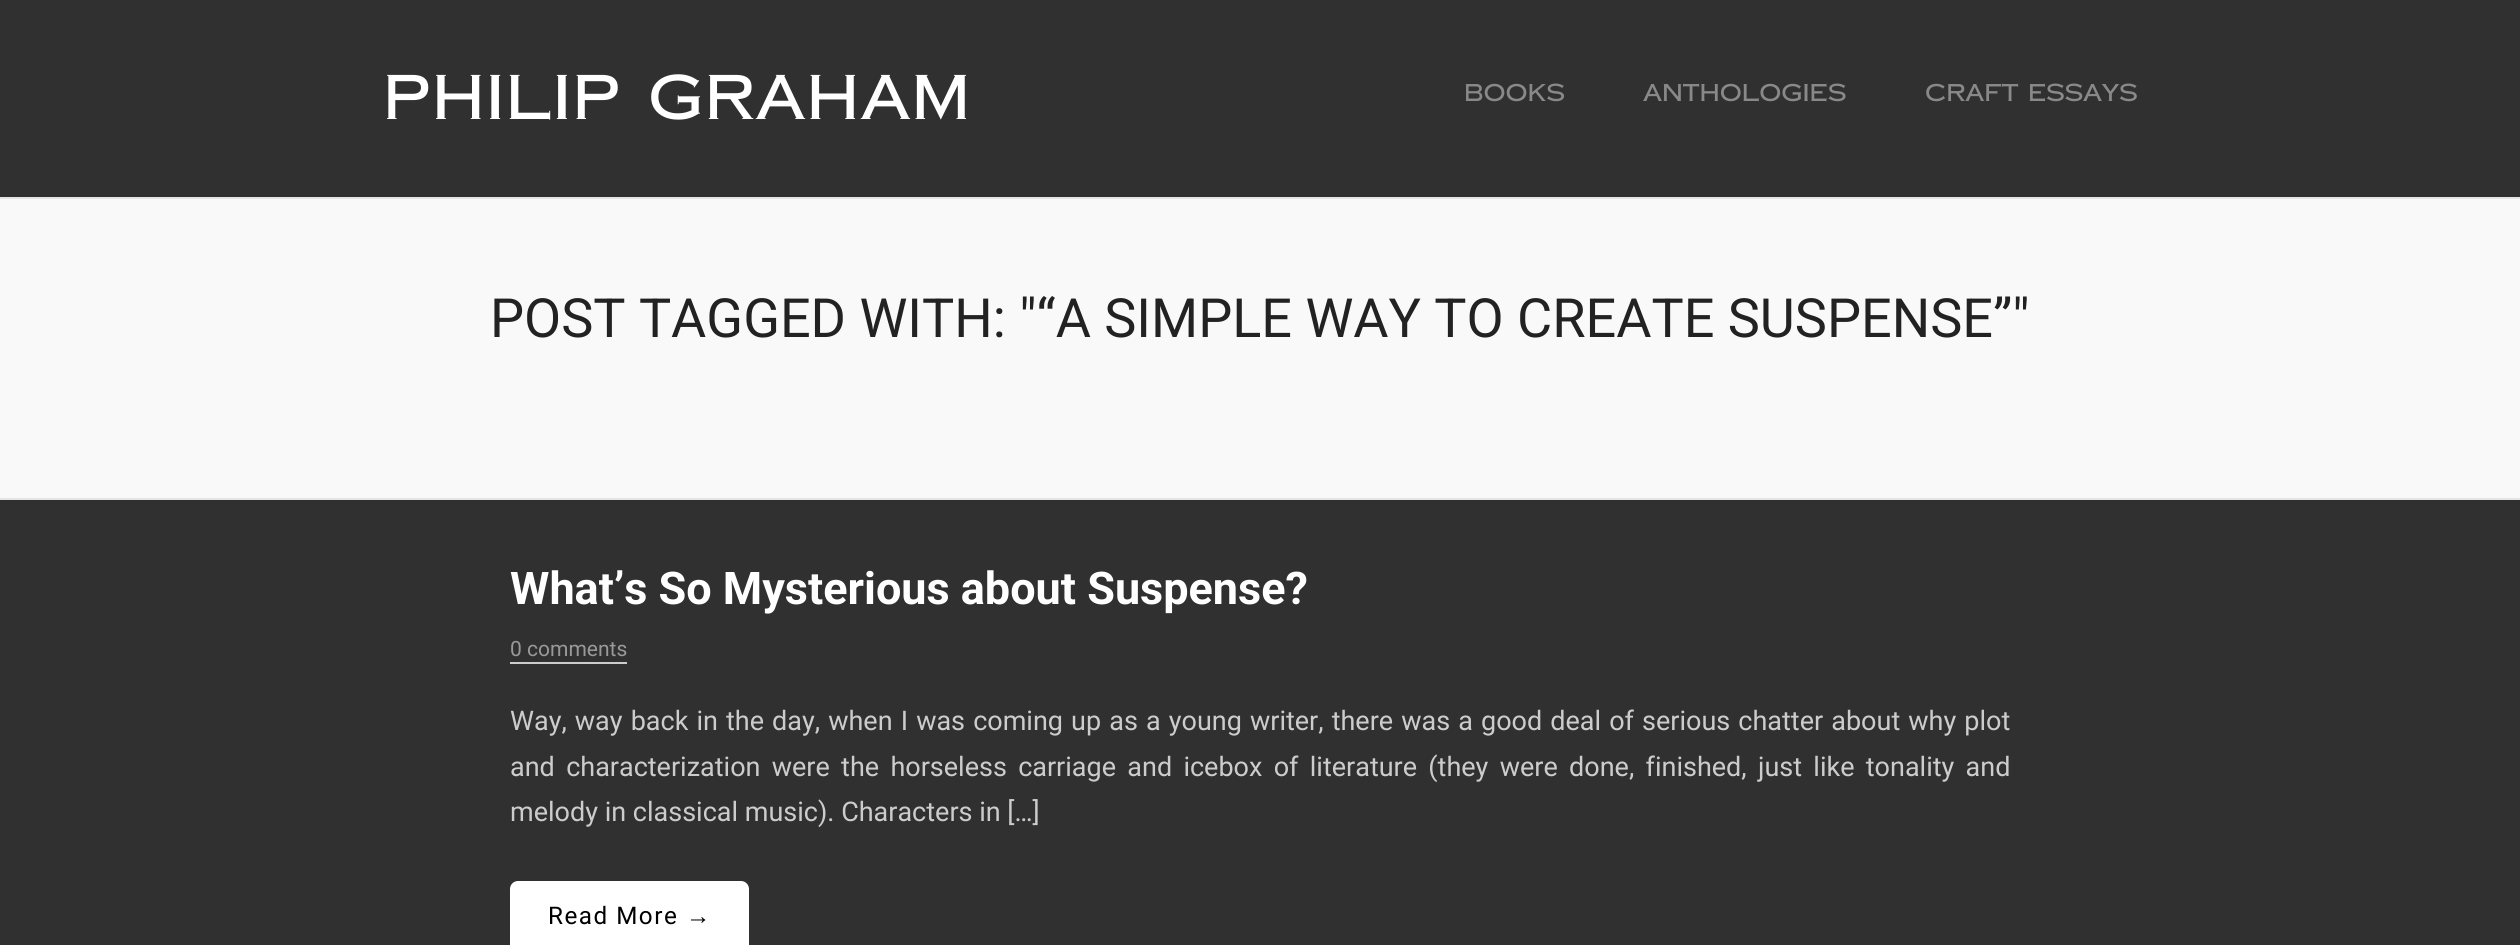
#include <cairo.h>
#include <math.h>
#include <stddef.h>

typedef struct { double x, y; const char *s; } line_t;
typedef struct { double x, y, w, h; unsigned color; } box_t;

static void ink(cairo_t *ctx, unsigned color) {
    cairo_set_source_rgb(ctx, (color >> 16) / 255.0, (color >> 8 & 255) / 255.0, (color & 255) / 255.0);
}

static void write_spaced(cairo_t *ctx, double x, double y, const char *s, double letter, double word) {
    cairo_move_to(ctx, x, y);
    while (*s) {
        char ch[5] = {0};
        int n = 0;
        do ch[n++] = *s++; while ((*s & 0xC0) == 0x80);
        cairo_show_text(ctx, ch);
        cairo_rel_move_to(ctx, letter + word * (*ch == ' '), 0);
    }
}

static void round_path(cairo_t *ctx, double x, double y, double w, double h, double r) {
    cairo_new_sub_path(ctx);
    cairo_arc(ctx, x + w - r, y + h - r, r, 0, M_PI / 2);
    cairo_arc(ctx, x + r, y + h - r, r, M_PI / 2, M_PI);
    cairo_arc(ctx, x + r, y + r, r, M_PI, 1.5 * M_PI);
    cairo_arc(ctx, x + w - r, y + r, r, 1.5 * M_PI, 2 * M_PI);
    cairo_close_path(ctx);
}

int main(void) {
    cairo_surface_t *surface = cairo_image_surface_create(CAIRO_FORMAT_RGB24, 2520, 945);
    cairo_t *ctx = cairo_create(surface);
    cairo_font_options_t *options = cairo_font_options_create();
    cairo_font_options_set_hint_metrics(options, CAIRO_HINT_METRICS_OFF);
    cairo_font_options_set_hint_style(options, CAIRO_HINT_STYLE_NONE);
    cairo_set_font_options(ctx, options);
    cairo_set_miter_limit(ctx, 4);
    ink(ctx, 0x303030);
    cairo_paint(ctx);
    cairo_select_font_face(ctx, "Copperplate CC", CAIRO_FONT_SLANT_NORMAL, CAIRO_FONT_WEIGHT_NORMAL);
    cairo_set_font_size(ctx, 63);
    ink(ctx, 0xFFFFFF);
    write_spaced(ctx, 383, 119, "PHILIP GRAHAM", 1.5, 0);
    cairo_set_font_size(ctx, 24.25);
    ink(ctx, 0x898989);
    {
        static const line_t items[] = {
            {1464, 101, "Books"},
            {1643, 101, "Anthologies"},
            {1925, 101, "Craft Essays"},
        };
        for (size_t i = 0; i < sizeof items / sizeof *items; i++) {
            cairo_move_to(ctx, items[i].x, items[i].y);
            cairo_show_text(ctx, items[i].s);
        }
    }
    {
        static const box_t items[] = {
            {0, 199, 2520, 299, 0xF9F9F9},
            {0, 197, 2520, 2, 0xE4E4E4},
            {0, 498, 2520, 2, 0xE4E4E4},
        };
        for (size_t i = 0; i < sizeof items / sizeof *items; i++) {
            ink(ctx, items[i].color);
            cairo_rectangle(ctx, items[i].x, items[i].y, items[i].w, items[i].h);
            cairo_fill(ctx);
        }
    }
    cairo_select_font_face(ctx, "Roboto", CAIRO_FONT_SLANT_NORMAL, CAIRO_FONT_WEIGHT_NORMAL);
    cairo_set_font_size(ctx, 54);
    ink(ctx, 0x222222);
    cairo_move_to(ctx, 490, 337);
    cairo_show_text(ctx, "POST TAGGED WITH: \"“A SIMPLE WAY TO CREATE SUSPENSE”\"");
    cairo_select_font_face(ctx, "Roboto", CAIRO_FONT_SLANT_NORMAL, CAIRO_FONT_WEIGHT_BOLD);
    cairo_set_font_size(ctx, 45);
    ink(ctx, 0xFFFFFF);
    cairo_move_to(ctx, 510, 604);
    cairo_show_text(ctx, "What’s So Mysterious about Suspense?");
    cairo_select_font_face(ctx, "Roboto", CAIRO_FONT_SLANT_NORMAL, CAIRO_FONT_WEIGHT_NORMAL);
    cairo_set_font_size(ctx, 21);
    ink(ctx, 0x999999);
    cairo_move_to(ctx, 510, 656);
    cairo_show_text(ctx, "0 comments");
    ink(ctx, 0xCCCCCC);
    cairo_rectangle(ctx, 510, 662, 117, 2);
    cairo_fill(ctx);
    cairo_set_font_size(ctx, 27);
    write_spaced(ctx, 510, 730, "Way, way back in the day, when I was coming up as a young writer, there was a good deal of serious chatter about why plot", 0, 1.4);
    write_spaced(ctx, 510, 776, "and characterization were the horseless carriage and icebox of literature (they were done, finished, just like tonality and", 0, 4.6);
    cairo_move_to(ctx, 510, 821);
    cairo_show_text(ctx, "melody in classical music). Characters in […]");
    ink(ctx, 0xFFFFFF);
    round_path(ctx, 510, 881, 239, 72, 8);
    cairo_fill(ctx);
    cairo_set_font_size(ctx, 24.25);
    ink(ctx, 0x000000);
    write_spaced(ctx, 548, 924, "Read More", 1.5, 0);
    cairo_select_font_face(ctx, "Liberation Sans", CAIRO_FONT_SLANT_NORMAL, CAIRO_FONT_WEIGHT_NORMAL);
    write_spaced(ctx, 686, 924, "→", 1.5, 0);
    cairo_surface_write_to_png(surface, "image.png");
    cairo_font_options_destroy(options);
    cairo_destroy(ctx);
    cairo_surface_destroy(surface);
    return 0;
}
